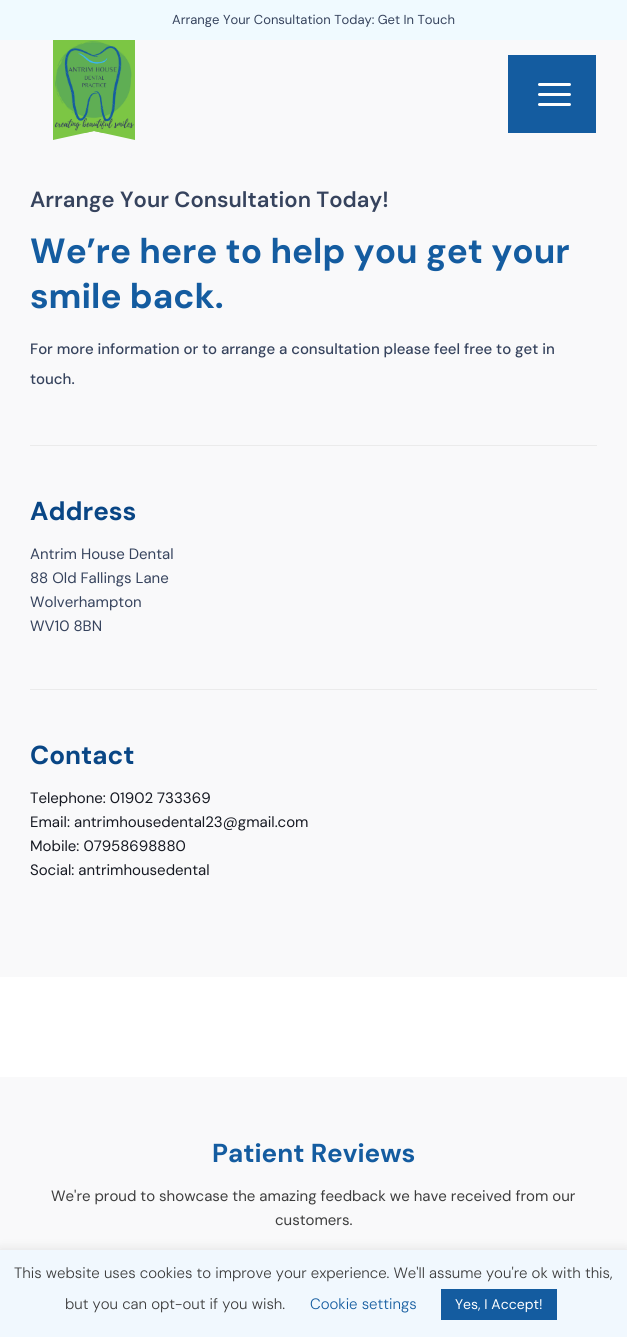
#include <cairo.h>
#include <math.h>
#include <stddef.h>

typedef struct { double x, y; const char *s; } line_t;

static void ink(cairo_t *ctx, unsigned color) {
    cairo_set_source_rgb(ctx, (color >> 16) / 255.0, (color >> 8 & 255) / 255.0, (color & 255) / 255.0);
}

static void round_path(cairo_t *ctx, double x, double y, double w, double h, double r) {
    cairo_new_sub_path(ctx);
    cairo_arc(ctx, x + w - r, y + h - r, r, 0, M_PI / 2);
    cairo_arc(ctx, x + r, y + h - r, r, M_PI / 2, M_PI);
    cairo_arc(ctx, x + r, y + r, r, M_PI, 1.5 * M_PI);
    cairo_arc(ctx, x + w - r, y + r, r, 1.5 * M_PI, 2 * M_PI);
    cairo_close_path(ctx);
}

static void blur_box(cairo_t *ctx, double x, double y, double w, double h, double r, double blur, double alpha) {
    cairo_push_group_with_content(ctx, CAIRO_CONTENT_ALPHA);
    cairo_set_operator(ctx, CAIRO_OPERATOR_SOURCE);
    for (int i = 15; i >= -15 && fmin(w, h) + blur * i / 3 > 0; i -= 2) {
        double e = blur * i / 6;
        cairo_set_source_rgba(ctx, 0, 0, 0, alpha * erfc((i - 1) / 8.5) / 2);
        round_path(ctx, x - e, y - e, w + 2 * e, h + 2 * e, fmax(0, fmin(r + e + blur * .6, fmin(w, h) / 2 + e)));
        cairo_fill(ctx);
    }
    cairo_pattern_t *soft = cairo_pop_group(ctx);
    cairo_mask(ctx, soft);
    cairo_pattern_destroy(soft);
}

static void paste(cairo_t *ctx, const char *path, double x, double y, double w, double h) {
    cairo_surface_t *image = cairo_image_surface_create_from_png(path);
    cairo_save(ctx);
    cairo_set_source_surface(ctx, image, x, y);
    cairo_rectangle(ctx, x, y, w, h);
    cairo_fill(ctx);
    cairo_restore(ctx);
    cairo_surface_destroy(image);
}

int main(void) {
    cairo_surface_t *surface = cairo_image_surface_create(CAIRO_FORMAT_RGB24, 627, 1337);
    cairo_t *ctx = cairo_create(surface);
    cairo_font_options_t *options = cairo_font_options_create();
    cairo_font_options_set_hint_metrics(options, CAIRO_HINT_METRICS_OFF);
    cairo_font_options_set_hint_style(options, CAIRO_HINT_STYLE_NONE);
    cairo_set_font_options(ctx, options);
    cairo_set_miter_limit(ctx, 4);
    ink(ctx, 0xFFFFFF);
    cairo_paint(ctx);
    ink(ctx, 0xF0FAFF);
    cairo_rectangle(ctx, 0, 0, 627, 40);
    cairo_fill(ctx);
    cairo_select_font_face(ctx, "DM Sans", CAIRO_FONT_SLANT_NORMAL, CAIRO_FONT_WEIGHT_NORMAL);
    cairo_set_font_size(ctx, 13);
    ink(ctx, 0x36435D);
    cairo_move_to(ctx, 172, 24);
    cairo_show_text(ctx, "Arrange Your Consultation Today: Get In Touch");
    ink(ctx, 0xF9F9FA);
    cairo_rectangle(ctx, 0, 40, 627, 937);
    cairo_fill(ctx);
    paste(ctx, "media/1.png", 53, 40, 82, 100);
    cairo_select_font_face(ctx, "DM Sans SemiBold", CAIRO_FONT_SLANT_NORMAL, CAIRO_FONT_WEIGHT_NORMAL);
    cairo_set_font_size(ctx, 22);
    ink(ctx, 0x36435D);
    cairo_move_to(ctx, 30, 207);
    cairo_show_text(ctx, "Arrange Your Consultation Today!");
    cairo_select_font_face(ctx, "DM Sans", CAIRO_FONT_SLANT_NORMAL, CAIRO_FONT_WEIGHT_BOLD);
    cairo_set_font_size(ctx, 35);
    ink(ctx, 0x145CA0);
    cairo_move_to(ctx, 30, 263);
    cairo_show_text(ctx, "We’re here to help you get your");
    cairo_move_to(ctx, 30, 308);
    cairo_show_text(ctx, "smile back.");
    cairo_select_font_face(ctx, "DM Sans Medium", CAIRO_FONT_SLANT_NORMAL, CAIRO_FONT_WEIGHT_NORMAL);
    cairo_set_font_size(ctx, 15);
    ink(ctx, 0x36435D);
    cairo_move_to(ctx, 30, 354);
    cairo_show_text(ctx, "For more information or to arrange a consultation please feel free to get in");
    cairo_move_to(ctx, 30, 384);
    cairo_show_text(ctx, "touch.");
    ink(ctx, 0xEBEBEB);
    cairo_rectangle(ctx, 30, 445, 567, 1);
    cairo_fill(ctx);
    cairo_select_font_face(ctx, "DM Sans", CAIRO_FONT_SLANT_NORMAL, CAIRO_FONT_WEIGHT_BOLD);
    cairo_set_font_size(ctx, 26);
    ink(ctx, 0x094685);
    cairo_move_to(ctx, 30, 520);
    cairo_show_text(ctx, "Address");
    cairo_select_font_face(ctx, "DM Sans", CAIRO_FONT_SLANT_NORMAL, CAIRO_FONT_WEIGHT_NORMAL);
    cairo_set_font_size(ctx, 15);
    ink(ctx, 0x36435D);
    {
        static const line_t items[] = {
            {30, 559, "Antrim House Dental"},
            {30, 583, "88 Old Fallings Lane"},
            {30, 607, "Wolverhampton"},
            {30, 631, "WV10 8BN"},
        };
        for (size_t i = 0; i < sizeof items / sizeof *items; i++) {
            cairo_move_to(ctx, items[i].x, items[i].y);
            cairo_show_text(ctx, items[i].s);
        }
    }
    ink(ctx, 0xEBEBEB);
    cairo_rectangle(ctx, 30, 689, 567, 1);
    cairo_fill(ctx);
    cairo_select_font_face(ctx, "DM Sans", CAIRO_FONT_SLANT_NORMAL, CAIRO_FONT_WEIGHT_BOLD);
    cairo_set_font_size(ctx, 26);
    ink(ctx, 0x094685);
    cairo_move_to(ctx, 30, 764);
    cairo_show_text(ctx, "Contact");
    cairo_select_font_face(ctx, "DM Sans", CAIRO_FONT_SLANT_NORMAL, CAIRO_FONT_WEIGHT_NORMAL);
    cairo_set_font_size(ctx, 15);
    ink(ctx, 0x161922);
    {
        static const line_t items[] = {
            {30, 803, "Telephone: 01902 733369"},
            {30, 827, "Email: antrimhousedental23@gmail.com"},
            {30, 851, "Mobile: 07958698880"},
            {30, 875, "Social: antrimhousedental"},
        };
        for (size_t i = 0; i < sizeof items / sizeof *items; i++) {
            cairo_move_to(ctx, items[i].x, items[i].y);
            cairo_show_text(ctx, items[i].s);
        }
    }
    ink(ctx, 0xF9F9FA);
    cairo_rectangle(ctx, 0, 1077, 627, 173);
    cairo_fill(ctx);
    cairo_select_font_face(ctx, "DM Sans", CAIRO_FONT_SLANT_NORMAL, CAIRO_FONT_WEIGHT_BOLD);
    cairo_set_font_size(ctx, 26);
    ink(ctx, 0x145CA0);
    cairo_move_to(ctx, 212, 1162);
    cairo_show_text(ctx, "Patient Reviews");
    cairo_select_font_face(ctx, "DM Sans", CAIRO_FONT_SLANT_NORMAL, CAIRO_FONT_WEIGHT_NORMAL);
    cairo_set_font_size(ctx, 15);
    ink(ctx, 0x3D3D3D);
    cairo_move_to(ctx, 51, 1201);
    cairo_show_text(ctx, "We're proud to showcase the amazing feedback we have received from our");
    cairo_move_to(ctx, 275, 1225);
    cairo_show_text(ctx, "customers.");
    ink(ctx, 0x145CA0);
    cairo_rectangle(ctx, 508, 55, 88, 78);
    cairo_fill(ctx);
    ink(ctx, 0xFFFFFF);
    round_path(ctx, 538, 93, 33, 3, 1.5);
    cairo_fill(ctx);
    round_path(ctx, 538, 83, 33, 3, 1.5);
    cairo_fill(ctx);
    round_path(ctx, 538, 103, 33, 3, 1.5);
    cairo_fill(ctx);
    ink(ctx, 0xACABAB);
    blur_box(ctx, 0, 1249, 627, 87, 0, 5, 0.3);
    ink(ctx, 0xF1F8FE);
    cairo_rectangle(ctx, 0, 1250, 627, 87);
    cairo_fill(ctx);
    cairo_select_font_face(ctx, "DM Sans Light", CAIRO_FONT_SLANT_NORMAL, CAIRO_FONT_WEIGHT_NORMAL);
    ink(ctx, 0x3D3D3D);
    cairo_move_to(ctx, 14, 1278);
    cairo_show_text(ctx, "This website uses cookies to improve your experience. We'll assume you're ok with this,");
    cairo_move_to(ctx, 65, 1309);
    cairo_show_text(ctx, "but you can opt-out if you wish.");
    ink(ctx, 0x145CA0);
    cairo_move_to(ctx, 310, 1309);
    cairo_show_text(ctx, "Cookie settings");
    cairo_rectangle(ctx, 441, 1289, 116, 31);
    cairo_fill(ctx);
    cairo_select_font_face(ctx, "DM Sans", CAIRO_FONT_SLANT_NORMAL, CAIRO_FONT_WEIGHT_NORMAL);
    cairo_set_font_size(ctx, 14);
    ink(ctx, 0xFFFFFF);
    cairo_move_to(ctx, 455, 1309);
    cairo_show_text(ctx, "Yes, I Accept!");
    cairo_surface_write_to_png(surface, "image.png");
    cairo_font_options_destroy(options);
    cairo_destroy(ctx);
    cairo_surface_destroy(surface);
    return 0;
}
